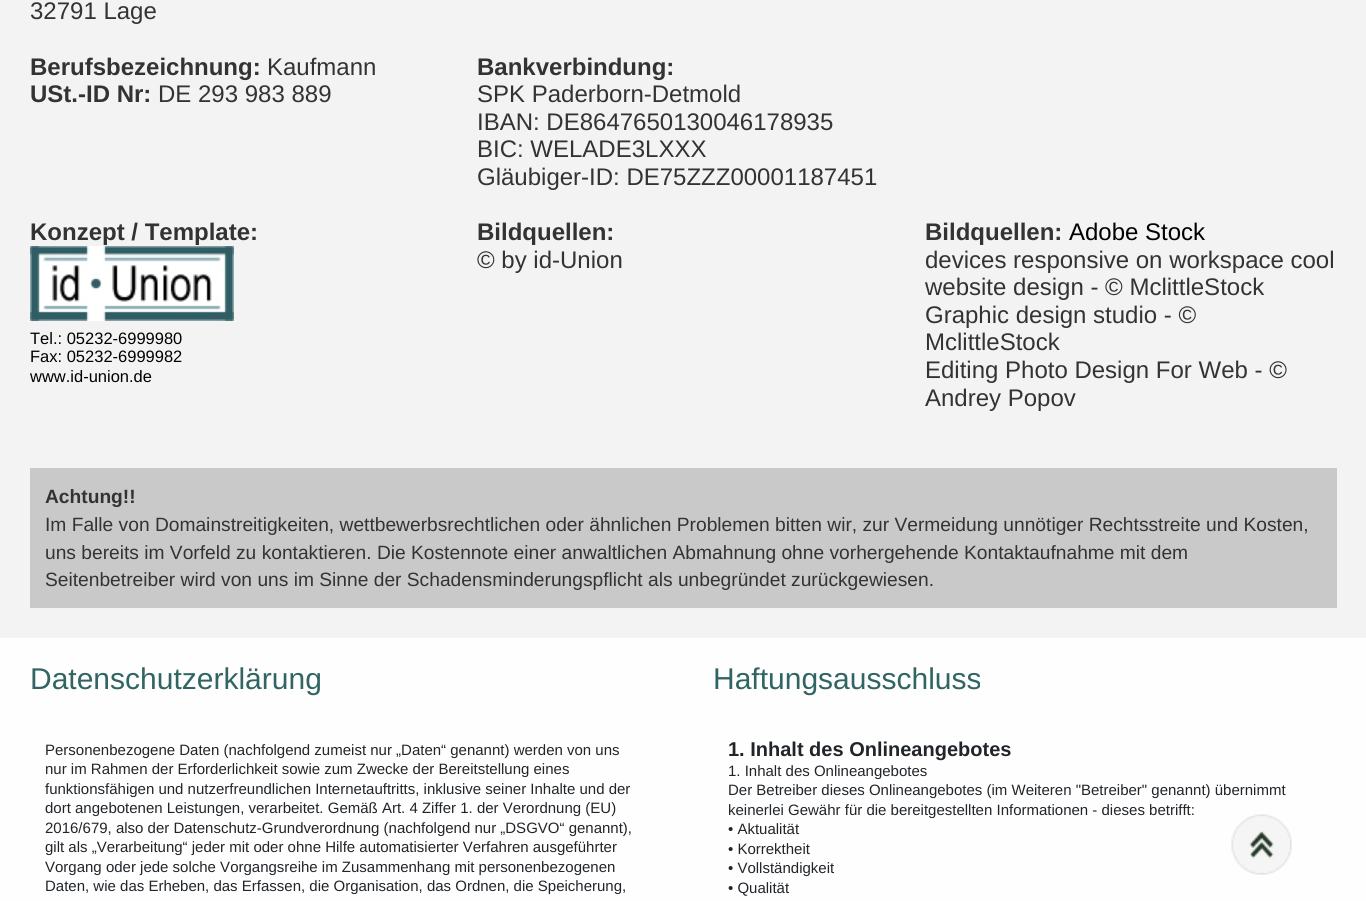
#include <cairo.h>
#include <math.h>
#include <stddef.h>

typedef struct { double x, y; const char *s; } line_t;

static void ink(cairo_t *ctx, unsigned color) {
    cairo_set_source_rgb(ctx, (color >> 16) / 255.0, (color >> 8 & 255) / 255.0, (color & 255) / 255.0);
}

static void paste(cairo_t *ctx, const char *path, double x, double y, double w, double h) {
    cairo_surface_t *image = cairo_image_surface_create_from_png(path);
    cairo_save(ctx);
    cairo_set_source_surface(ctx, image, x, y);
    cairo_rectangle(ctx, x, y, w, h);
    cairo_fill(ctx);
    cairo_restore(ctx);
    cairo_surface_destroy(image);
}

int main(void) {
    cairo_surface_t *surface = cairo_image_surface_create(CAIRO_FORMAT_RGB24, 1366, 901);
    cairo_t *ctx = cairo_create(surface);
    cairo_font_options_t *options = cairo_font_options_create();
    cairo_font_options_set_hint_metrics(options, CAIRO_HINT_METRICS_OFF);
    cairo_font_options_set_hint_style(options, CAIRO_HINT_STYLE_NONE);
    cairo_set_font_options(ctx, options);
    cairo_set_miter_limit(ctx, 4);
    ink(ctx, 0xF3F3F3);
    cairo_paint(ctx);
    cairo_select_font_face(ctx, "Liberation Sans", CAIRO_FONT_SLANT_NORMAL, CAIRO_FONT_WEIGHT_NORMAL);
    cairo_set_font_size(ctx, 24);
    ink(ctx, 0x333333);
    cairo_move_to(ctx, 30, 19);
    cairo_show_text(ctx, "32791 Lage");
    cairo_select_font_face(ctx, "Liberation Sans", CAIRO_FONT_SLANT_NORMAL, CAIRO_FONT_WEIGHT_BOLD);
    cairo_move_to(ctx, 30, 75);
    cairo_show_text(ctx, "Berufsbezeichnung:");
    cairo_select_font_face(ctx, "Liberation Sans", CAIRO_FONT_SLANT_NORMAL, CAIRO_FONT_WEIGHT_NORMAL);
    cairo_move_to(ctx, 267, 75);
    cairo_show_text(ctx, "Kaufmann");
    cairo_select_font_face(ctx, "Liberation Sans", CAIRO_FONT_SLANT_NORMAL, CAIRO_FONT_WEIGHT_BOLD);
    cairo_move_to(ctx, 30, 102);
    cairo_show_text(ctx, "USt.-ID Nr:");
    cairo_select_font_face(ctx, "Liberation Sans", CAIRO_FONT_SLANT_NORMAL, CAIRO_FONT_WEIGHT_NORMAL);
    cairo_move_to(ctx, 158, 102);
    cairo_show_text(ctx, "DE 293 983 889");
    cairo_select_font_face(ctx, "Liberation Sans", CAIRO_FONT_SLANT_NORMAL, CAIRO_FONT_WEIGHT_BOLD);
    cairo_move_to(ctx, 477, 75);
    cairo_show_text(ctx, "Bankverbindung:");
    cairo_select_font_face(ctx, "Liberation Sans", CAIRO_FONT_SLANT_NORMAL, CAIRO_FONT_WEIGHT_NORMAL);
    {
        static const line_t items[] = {
            {477, 102, "SPK Paderborn-Detmold"},
            {477, 130, "IBAN: DE8647650130046178935"},
            {477, 157, "BIC: WELADE3LXXX"},
            {477, 185, "Gläubiger-ID: DE75ZZZ00001187451"},
        };
        for (size_t i = 0; i < sizeof items / sizeof *items; i++) {
            cairo_move_to(ctx, items[i].x, items[i].y);
            cairo_show_text(ctx, items[i].s);
        }
    }
    cairo_select_font_face(ctx, "Liberation Sans", CAIRO_FONT_SLANT_NORMAL, CAIRO_FONT_WEIGHT_BOLD);
    cairo_move_to(ctx, 30, 240);
    cairo_show_text(ctx, "Konzept / Template:");
    paste(ctx, "media/1.png", 30, 246, 204, 75);
    cairo_select_font_face(ctx, "Liberation Sans", CAIRO_FONT_SLANT_NORMAL, CAIRO_FONT_WEIGHT_NORMAL);
    cairo_set_font_size(ctx, 16.5);
    ink(ctx, 0x000000);
    {
        static const line_t items[] = {
            {30, 344, "Tel.: 05232-6999980"},
            {30, 362, "Fax: 05232-6999982"},
            {30, 382, "www.id-union.de"},
        };
        for (size_t i = 0; i < sizeof items / sizeof *items; i++) {
            cairo_move_to(ctx, items[i].x, items[i].y);
            cairo_show_text(ctx, items[i].s);
        }
    }
    cairo_select_font_face(ctx, "Liberation Sans", CAIRO_FONT_SLANT_NORMAL, CAIRO_FONT_WEIGHT_BOLD);
    cairo_set_font_size(ctx, 24);
    ink(ctx, 0x333333);
    cairo_move_to(ctx, 477, 240);
    cairo_show_text(ctx, "Bildquellen:");
    cairo_select_font_face(ctx, "Liberation Sans", CAIRO_FONT_SLANT_NORMAL, CAIRO_FONT_WEIGHT_NORMAL);
    cairo_move_to(ctx, 477, 268);
    cairo_show_text(ctx, "© by id-Union");
    cairo_select_font_face(ctx, "Liberation Sans", CAIRO_FONT_SLANT_NORMAL, CAIRO_FONT_WEIGHT_BOLD);
    cairo_move_to(ctx, 925, 240);
    cairo_show_text(ctx, "Bildquellen:");
    cairo_select_font_face(ctx, "Liberation Sans", CAIRO_FONT_SLANT_NORMAL, CAIRO_FONT_WEIGHT_NORMAL);
    ink(ctx, 0x000000);
    cairo_move_to(ctx, 1069, 240);
    cairo_show_text(ctx, "Adobe Stock");
    ink(ctx, 0x333333);
    {
        static const line_t items[] = {
            {925, 268, "devices responsive on workspace cool"},
            {925, 295, "website design - © MclittleStock"},
            {925, 323, "Graphic design studio - ©"},
            {925, 350, "MclittleStock"},
            {925, 378, "Editing Photo Design For Web - ©"},
            {925, 406, "Andrey Popov"},
        };
        for (size_t i = 0; i < sizeof items / sizeof *items; i++) {
            cairo_move_to(ctx, items[i].x, items[i].y);
            cairo_show_text(ctx, items[i].s);
        }
    }
    ink(ctx, 0xC9C9C9);
    cairo_rectangle(ctx, 30, 468, 1307, 140);
    cairo_fill(ctx);
    cairo_select_font_face(ctx, "Liberation Sans", CAIRO_FONT_SLANT_NORMAL, CAIRO_FONT_WEIGHT_BOLD);
    cairo_set_font_size(ctx, 19.2);
    ink(ctx, 0x333333);
    cairo_move_to(ctx, 45, 503);
    cairo_show_text(ctx, "Achtung!!");
    cairo_select_font_face(ctx, "Liberation Sans", CAIRO_FONT_SLANT_NORMAL, CAIRO_FONT_WEIGHT_NORMAL);
    {
        static const line_t items[] = {
            {45, 531, "Im Falle von Domainstreitigkeiten, wettbewerbsrechtlichen oder ähnlichen Problemen bitten wir, zur Vermeidung unnötiger Rechtsstreite und Kosten,"},
            {45, 559, "uns bereits im Vorfeld zu kontaktieren. Die Kostennote einer anwaltlichen Abmahnung ohne vorhergehende Kontaktaufnahme mit dem"},
            {45, 586, "Seitenbetreiber wird von uns im Sinne der Schadensminderungspflicht als unbegründet zurückgewiesen."},
        };
        for (size_t i = 0; i < sizeof items / sizeof *items; i++) {
            cairo_move_to(ctx, items[i].x, items[i].y);
            cairo_show_text(ctx, items[i].s);
        }
    }
    ink(ctx, 0xFEFEFE);
    cairo_rectangle(ctx, 0, 638, 1366, 263);
    cairo_fill(ctx);
    cairo_set_font_size(ctx, 30);
    ink(ctx, 0x316563);
    cairo_move_to(ctx, 30, 689);
    cairo_show_text(ctx, "Datenschutzerklärung");
    cairo_set_font_size(ctx, 15);
    ink(ctx, 0x212529);
    {
        static const line_t items[] = {
            {45, 755, "Personenbezogene Daten (nachfolgend zumeist nur „Daten“ genannt) werden von uns"},
            {45, 774, "nur im Rahmen der Erforderlichkeit sowie zum Zwecke der Bereitstellung eines"},
            {45, 794, "funktionsfähigen und nutzerfreundlichen Internetauftritts, inklusive seiner Inhalte und der"},
            {45, 813, "dort angebotenen Leistungen, verarbeitet. Gemäß Art. 4 Ziffer 1. der Verordnung (EU)"},
            {45, 833, "2016/679, also der Datenschutz-Grundverordnung (nachfolgend nur „DSGVO“ genannt),"},
            {45, 852, "gilt als „Verarbeitung“ jeder mit oder ohne Hilfe automatisierter Verfahren ausgeführter"},
            {45, 872, "Vorgang oder jede solche Vorgangsreihe im Zusammenhang mit personenbezogenen"},
            {45, 891, "Daten, wie das Erheben, das Erfassen, die Organisation, das Ordnen, die Speicherung,"},
        };
        for (size_t i = 0; i < sizeof items / sizeof *items; i++) {
            cairo_move_to(ctx, items[i].x, items[i].y);
            cairo_show_text(ctx, items[i].s);
        }
    }
    cairo_set_font_size(ctx, 30);
    ink(ctx, 0x316563);
    cairo_move_to(ctx, 713, 689);
    cairo_show_text(ctx, "Haftungsausschluss");
    cairo_select_font_face(ctx, "Liberation Sans", CAIRO_FONT_SLANT_NORMAL, CAIRO_FONT_WEIGHT_BOLD);
    cairo_set_font_size(ctx, 20);
    ink(ctx, 0x212529);
    cairo_move_to(ctx, 728, 756);
    cairo_show_text(ctx, "1. Inhalt des Onlineangebotes");
    cairo_select_font_face(ctx, "Liberation Sans", CAIRO_FONT_SLANT_NORMAL, CAIRO_FONT_WEIGHT_NORMAL);
    cairo_set_font_size(ctx, 15);
    {
        static const line_t items[] = {
            {728, 776, "1. Inhalt des Onlineangebotes"},
            {728, 795, "Der Betreiber dieses Onlineangebotes (im Weiteren \"Betreiber\" genannt) übernimmt"},
            {728, 815, "keinerlei Gewähr für die bereitgestellten Informationen - dieses betrifft:"},
            {728, 834, "• Aktualität"},
            {728, 854, "• Korrektheit"},
            {728, 873, "• Vollständigkeit"},
            {728, 893, "• Qualität"},
        };
        for (size_t i = 0; i < sizeof items / sizeof *items; i++) {
            cairo_move_to(ctx, items[i].x, items[i].y);
            cairo_show_text(ctx, items[i].s);
        }
    }
    paste(ctx, "media/2.png", 1231, 814, 61, 61);
    cairo_surface_write_to_png(surface, "image.png");
    cairo_font_options_destroy(options);
    cairo_destroy(ctx);
    cairo_surface_destroy(surface);
    return 0;
}
